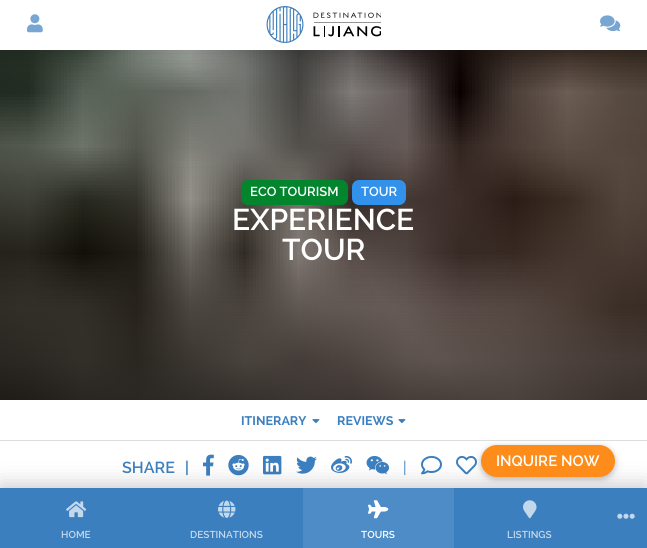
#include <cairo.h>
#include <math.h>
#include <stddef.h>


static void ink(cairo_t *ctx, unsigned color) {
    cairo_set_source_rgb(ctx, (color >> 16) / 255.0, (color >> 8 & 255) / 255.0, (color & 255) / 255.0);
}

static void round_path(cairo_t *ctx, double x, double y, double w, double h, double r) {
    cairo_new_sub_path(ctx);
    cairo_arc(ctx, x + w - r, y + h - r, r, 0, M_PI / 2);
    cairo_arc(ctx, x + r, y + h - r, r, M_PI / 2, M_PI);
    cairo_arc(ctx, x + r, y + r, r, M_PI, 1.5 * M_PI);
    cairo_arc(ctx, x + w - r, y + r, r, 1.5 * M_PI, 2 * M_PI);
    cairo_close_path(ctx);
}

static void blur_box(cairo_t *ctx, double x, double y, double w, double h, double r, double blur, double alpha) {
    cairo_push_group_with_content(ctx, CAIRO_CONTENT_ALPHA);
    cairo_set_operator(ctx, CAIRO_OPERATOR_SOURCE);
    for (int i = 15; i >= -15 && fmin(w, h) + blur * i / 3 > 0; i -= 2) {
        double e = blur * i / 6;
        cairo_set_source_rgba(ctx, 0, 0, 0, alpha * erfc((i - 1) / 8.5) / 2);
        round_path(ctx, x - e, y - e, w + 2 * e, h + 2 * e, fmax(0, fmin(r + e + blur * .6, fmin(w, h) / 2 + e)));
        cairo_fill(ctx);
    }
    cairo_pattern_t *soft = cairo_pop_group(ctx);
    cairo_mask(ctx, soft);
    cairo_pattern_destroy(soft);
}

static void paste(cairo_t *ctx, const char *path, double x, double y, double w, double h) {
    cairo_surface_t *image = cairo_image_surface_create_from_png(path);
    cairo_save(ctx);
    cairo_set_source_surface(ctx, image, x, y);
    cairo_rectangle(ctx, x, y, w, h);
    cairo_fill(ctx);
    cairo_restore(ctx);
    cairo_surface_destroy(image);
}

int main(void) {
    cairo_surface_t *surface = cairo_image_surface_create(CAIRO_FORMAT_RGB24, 647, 548);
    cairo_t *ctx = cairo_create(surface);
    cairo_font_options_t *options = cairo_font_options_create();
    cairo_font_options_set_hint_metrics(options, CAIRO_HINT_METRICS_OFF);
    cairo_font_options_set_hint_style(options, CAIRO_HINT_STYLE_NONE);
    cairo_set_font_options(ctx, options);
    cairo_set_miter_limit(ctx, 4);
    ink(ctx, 0xFFFFFF);
    cairo_paint(ctx);
    paste(ctx, "media/1.png", 0, 50, 647, 350);
    ink(ctx, 0x03852E);
    round_path(ctx, 241, 180, 107, 25, 7);
    cairo_fill(ctx);
    cairo_select_font_face(ctx, "Raleway SemiBold", CAIRO_FONT_SLANT_NORMAL, CAIRO_FONT_WEIGHT_NORMAL);
    cairo_set_font_size(ctx, 13);
    ink(ctx, 0xFFFFFF);
    cairo_move_to(ctx, 250, 196);
    cairo_show_text(ctx, "ECO TOURISM");
    ink(ctx, 0x3291EB);
    round_path(ctx, 352, 180, 54, 25, 7);
    cairo_fill(ctx);
    ink(ctx, 0xFFFFFF);
    cairo_move_to(ctx, 361, 196);
    cairo_show_text(ctx, "TOUR");
    cairo_set_font_size(ctx, 30);
    cairo_move_to(ctx, 232, 230);
    cairo_show_text(ctx, "EXPERIENCE");
    cairo_move_to(ctx, 282, 260);
    cairo_show_text(ctx, "TOUR");
    ink(ctx, 0xDDDDDD);
    cairo_rectangle(ctx, 0, 440, 647, 1);
    cairo_fill(ctx);
    cairo_select_font_face(ctx, "Raleway", CAIRO_FONT_SLANT_NORMAL, CAIRO_FONT_WEIGHT_BOLD);
    cairo_set_font_size(ctx, 12.5);
    ink(ctx, 0x3C7FBF);
    cairo_move_to(ctx, 241, 425);
    cairo_show_text(ctx, "ITINERARY");
    paste(ctx, "media/2.png", 312, 419, 8, 5);
    cairo_move_to(ctx, 337, 425);
    cairo_show_text(ctx, "REVIEWS");
    paste(ctx, "media/2.png", 398, 419, 8, 5);
    cairo_select_font_face(ctx, "Raleway SemiBold", CAIRO_FONT_SLANT_NORMAL, CAIRO_FONT_WEIGHT_NORMAL);
    cairo_set_font_size(ctx, 16);
    cairo_move_to(ctx, 122, 473);
    cairo_show_text(ctx, "SHARE");
    cairo_move_to(ctx, 185, 473);
    cairo_show_text(ctx, "|");
    paste(ctx, "media/3.png", 203, 454, 11, 22);
    paste(ctx, "media/4.png", 228, 454, 21, 22);
    paste(ctx, "media/5.png", 263, 455, 19, 20);
    paste(ctx, "media/6.png", 296, 456, 21, 18);
    paste(ctx, "media/7.png", 331, 455, 21, 18);
    paste(ctx, "media/8.png", 366, 455, 24, 20);
    cairo_select_font_face(ctx, "Raleway", CAIRO_FONT_SLANT_NORMAL, CAIRO_FONT_WEIGHT_NORMAL);
    cairo_move_to(ctx, 403, 473);
    cairo_show_text(ctx, "|");
    paste(ctx, "media/9.png", 421, 455, 21, 20);
    paste(ctx, "media/10.png", 456, 455, 21, 20);
    ink(ctx, 0x000000);
    blur_box(ctx, 0, 484, 647, 60, 0, 10, 0.2);
    ink(ctx, 0x3C7FBF);
    cairo_rectangle(ctx, 0, 488, 647, 60);
    cairo_fill(ctx);
    ink(ctx, 0x000000);
    blur_box(ctx, 481, 447, 134, 32, 16, 5, 0.12);
    blur_box(ctx, 481, 447, 134, 32, 16, 2.5, 0.16);
    ink(ctx, 0xFE8C1B);
    round_path(ctx, 481, 445, 134, 32, 16);
    cairo_fill(ctx);
    cairo_select_font_face(ctx, "Raleway SemiBold", CAIRO_FONT_SLANT_NORMAL, CAIRO_FONT_WEIGHT_NORMAL);
    cairo_set_font_size(ctx, 15);
    ink(ctx, 0xFFFFFF);
    cairo_move_to(ctx, 496, 466);
    cairo_show_text(ctx, "INQUIRE NOW");
    ink(ctx, 0x000000);
    blur_box(ctx, 0, 2, 647, 50, 0, 10, 0.2);
    ink(ctx, 0xFFFFFF);
    cairo_rectangle(ctx, 0, 0, 647, 50);
    cairo_fill(ctx);
    paste(ctx, "media/11.png", 27, 14, 16, 19);
    paste(ctx, "media/12.png", 266, 6, 115, 37);
    paste(ctx, "media/13.png", 600, 15, 21, 17);
    paste(ctx, "media/14.png", 617, 513, 18, 6);
    paste(ctx, "media/15.png", 66, 501, 21, 17);
    cairo_set_font_size(ctx, 10);
    ink(ctx, 0xC5D9EC);
    cairo_move_to(ctx, 61, 538);
    cairo_show_text(ctx, "HOME");
    paste(ctx, "media/16.png", 218, 500, 18, 18);
    cairo_move_to(ctx, 190, 538);
    cairo_show_text(ctx, "DESTINATIONS");
    ink(ctx, 0x4D8CC7);
    cairo_rectangle(ctx, 303, 488, 151, 60);
    cairo_fill(ctx);
    paste(ctx, "media/17.png", 368, 500, 21, 19);
    ink(ctx, 0xFFFFFF);
    cairo_move_to(ctx, 361, 538);
    cairo_show_text(ctx, "TOURS");
    paste(ctx, "media/18.png", 523, 500, 14, 19);
    ink(ctx, 0xC5D9EC);
    cairo_move_to(ctx, 507, 538);
    cairo_show_text(ctx, "LISTINGS");
    cairo_surface_write_to_png(surface, "image.png");
    cairo_font_options_destroy(options);
    cairo_destroy(ctx);
    cairo_surface_destroy(surface);
    return 0;
}
